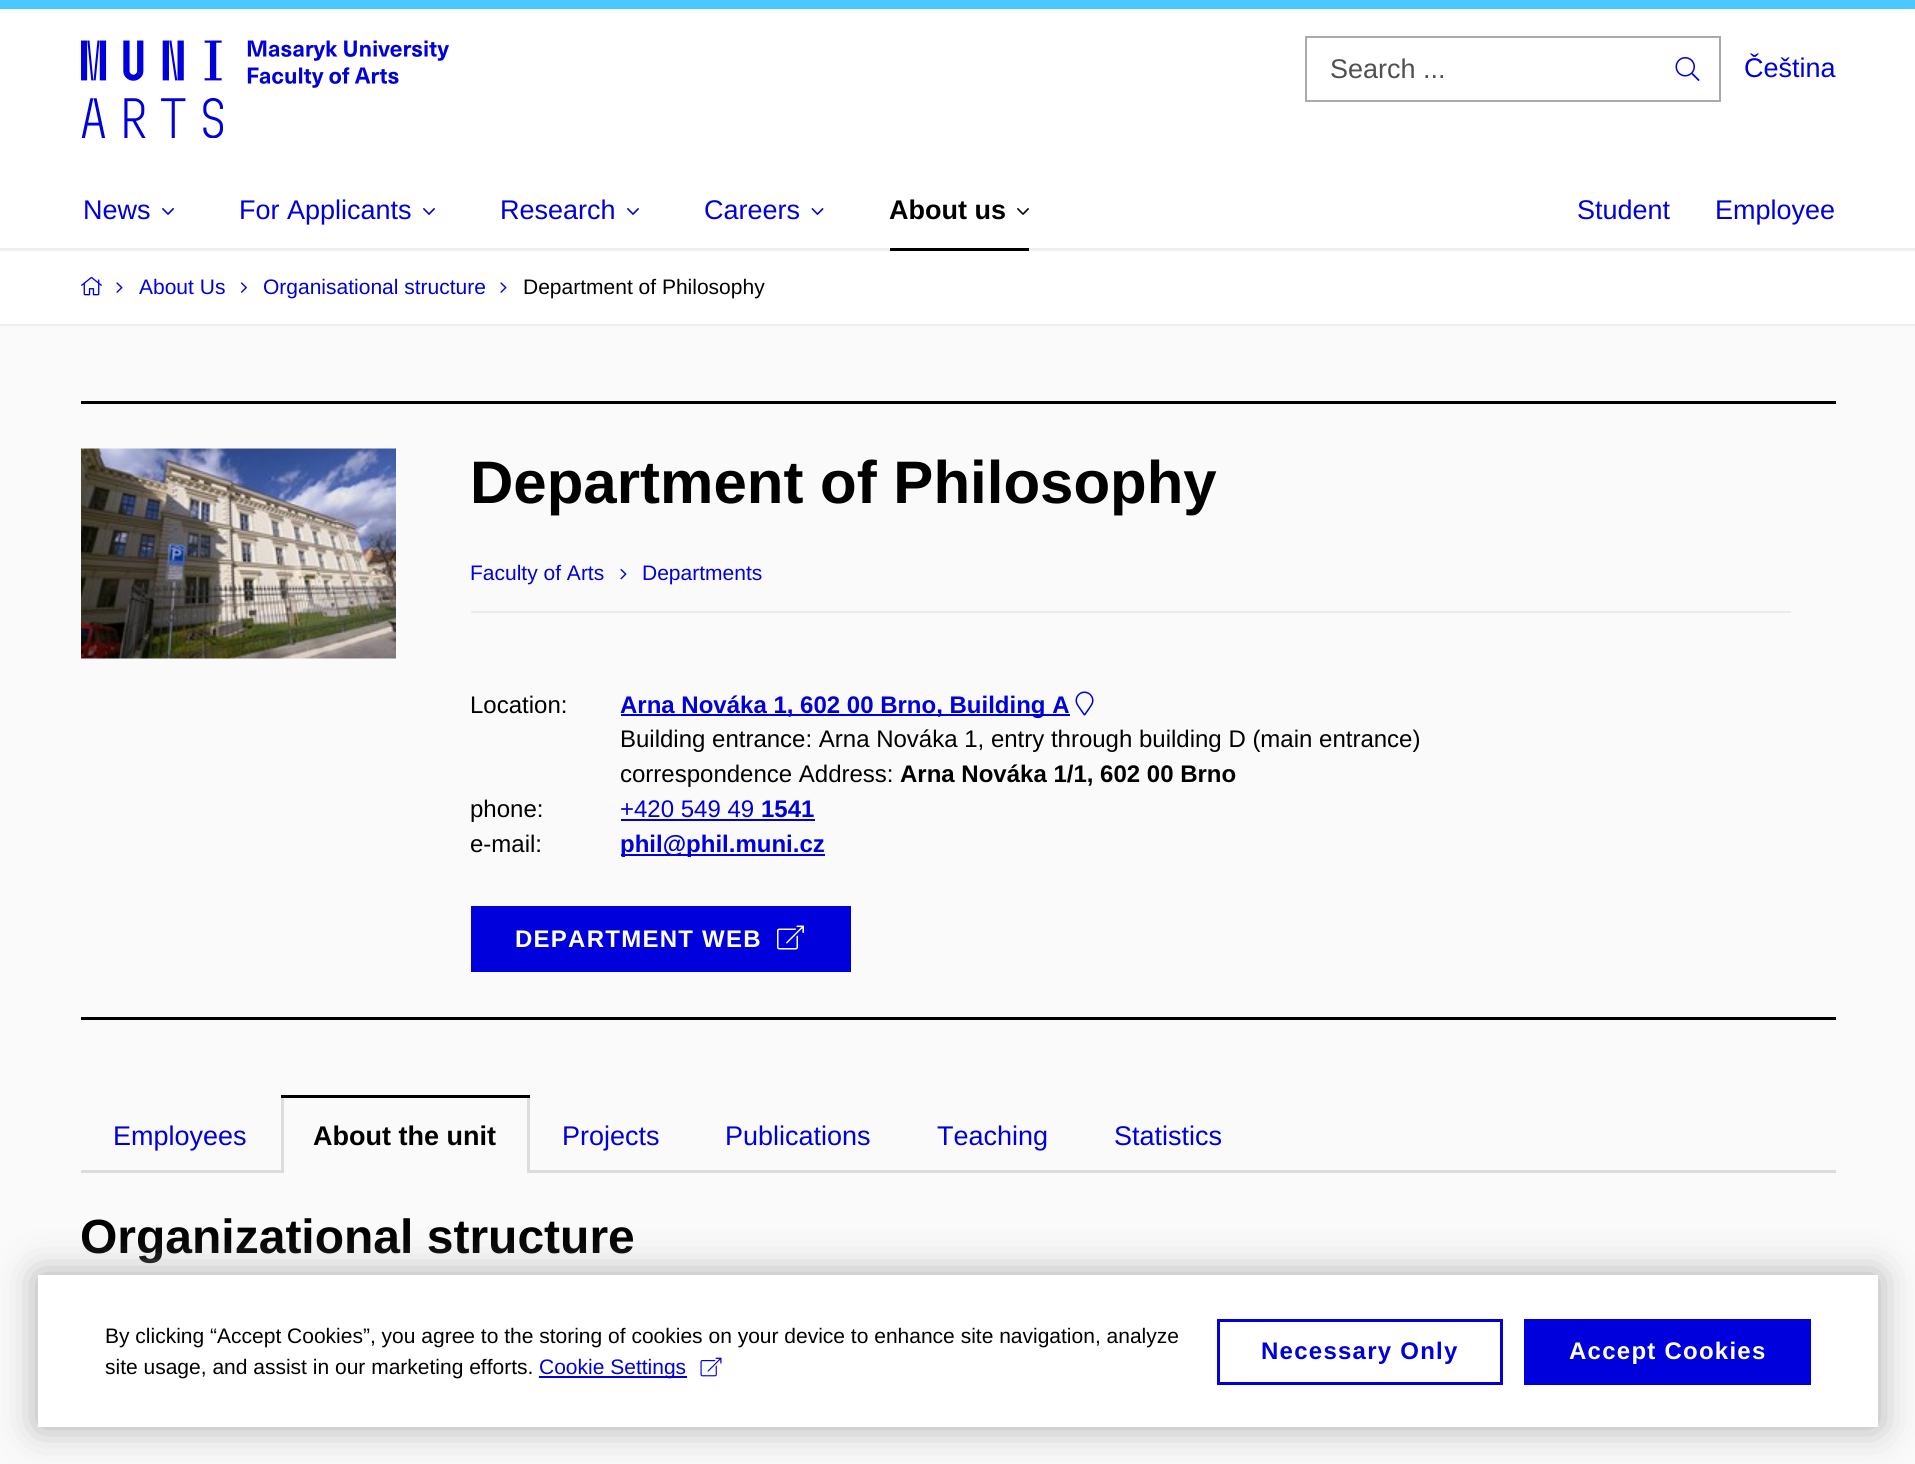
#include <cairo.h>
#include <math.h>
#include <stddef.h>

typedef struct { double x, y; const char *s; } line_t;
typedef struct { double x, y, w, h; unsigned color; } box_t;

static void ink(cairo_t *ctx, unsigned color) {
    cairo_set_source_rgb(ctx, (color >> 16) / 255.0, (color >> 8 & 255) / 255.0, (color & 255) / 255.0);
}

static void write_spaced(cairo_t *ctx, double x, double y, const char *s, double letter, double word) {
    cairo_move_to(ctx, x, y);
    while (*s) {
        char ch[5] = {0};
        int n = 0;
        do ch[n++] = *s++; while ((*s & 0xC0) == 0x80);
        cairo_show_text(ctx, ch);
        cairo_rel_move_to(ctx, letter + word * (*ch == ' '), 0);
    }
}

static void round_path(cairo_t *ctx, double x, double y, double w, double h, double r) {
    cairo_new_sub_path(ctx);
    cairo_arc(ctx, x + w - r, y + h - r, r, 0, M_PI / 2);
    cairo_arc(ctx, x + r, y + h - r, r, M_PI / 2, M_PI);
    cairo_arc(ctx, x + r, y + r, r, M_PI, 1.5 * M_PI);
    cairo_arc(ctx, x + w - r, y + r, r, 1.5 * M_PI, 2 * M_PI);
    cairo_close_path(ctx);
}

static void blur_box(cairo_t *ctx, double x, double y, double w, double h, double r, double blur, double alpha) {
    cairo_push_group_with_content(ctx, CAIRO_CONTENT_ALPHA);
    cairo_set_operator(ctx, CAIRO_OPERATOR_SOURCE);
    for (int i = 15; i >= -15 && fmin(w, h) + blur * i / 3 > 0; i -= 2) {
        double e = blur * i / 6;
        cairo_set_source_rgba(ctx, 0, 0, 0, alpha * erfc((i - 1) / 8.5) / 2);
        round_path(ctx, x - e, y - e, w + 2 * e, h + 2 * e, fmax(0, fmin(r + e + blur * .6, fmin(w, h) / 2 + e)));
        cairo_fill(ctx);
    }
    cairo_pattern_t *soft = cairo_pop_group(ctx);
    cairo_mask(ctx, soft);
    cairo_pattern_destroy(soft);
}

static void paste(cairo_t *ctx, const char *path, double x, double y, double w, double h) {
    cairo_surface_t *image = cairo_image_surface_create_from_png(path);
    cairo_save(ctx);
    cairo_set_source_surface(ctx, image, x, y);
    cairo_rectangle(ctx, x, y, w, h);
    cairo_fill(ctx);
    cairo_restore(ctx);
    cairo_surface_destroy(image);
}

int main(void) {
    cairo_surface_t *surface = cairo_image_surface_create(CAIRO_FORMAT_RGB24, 1915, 1464);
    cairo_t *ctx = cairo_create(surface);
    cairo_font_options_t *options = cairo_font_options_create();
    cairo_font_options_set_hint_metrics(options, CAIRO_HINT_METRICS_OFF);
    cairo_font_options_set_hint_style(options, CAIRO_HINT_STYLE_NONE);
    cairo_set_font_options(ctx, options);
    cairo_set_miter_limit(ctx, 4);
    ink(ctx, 0xFAFAFA);
    cairo_paint(ctx);
    {
        static const box_t items[] = {
            {0, 9, 1915, 239, 0xFFFFFF},
            {0, 0, 1915, 9, 0x4BC8FF},
            {0, 248, 1915, 3, 0xEEEEEE},
        };
        for (size_t i = 0; i < sizeof items / sizeof *items; i++) {
            ink(ctx, items[i].color);
            cairo_rectangle(ctx, items[i].x, items[i].y, items[i].w, items[i].h);
            cairo_fill(ctx);
        }
    }
    paste(ctx, "media/1.png", 81, 40, 368, 98);
    cairo_rectangle(ctx, 1306, 37, 414, 64);
    ink(ctx, 0xAAAAAA);
    cairo_stroke(ctx);
    cairo_select_font_face(ctx, "Liberation Sans", CAIRO_FONT_SLANT_NORMAL, CAIRO_FONT_WEIGHT_NORMAL);
    cairo_set_font_size(ctx, 27);
    ink(ctx, 0x505050);
    cairo_move_to(ctx, 1330, 78);
    cairo_show_text(ctx, "Search ...");
    paste(ctx, "media/2.png", 1675, 57, 25, 24);
    ink(ctx, 0x0000DC);
    cairo_move_to(ctx, 1744, 77);
    cairo_show_text(ctx, "Čeština");
    cairo_move_to(ctx, 83, 219);
    cairo_show_text(ctx, "News");
    paste(ctx, "media/3.png", 162, 208, 12, 7);
    cairo_move_to(ctx, 239, 219);
    cairo_show_text(ctx, "For Applicants");
    paste(ctx, "media/3.png", 423, 208, 12, 7);
    cairo_move_to(ctx, 500, 219);
    cairo_show_text(ctx, "Research");
    paste(ctx, "media/3.png", 627, 208, 12, 7);
    cairo_move_to(ctx, 704, 219);
    cairo_show_text(ctx, "Careers");
    paste(ctx, "media/4.png", 811, 208, 13, 7);
    cairo_select_font_face(ctx, "Liberation Sans", CAIRO_FONT_SLANT_NORMAL, CAIRO_FONT_WEIGHT_BOLD);
    ink(ctx, 0x000000);
    cairo_move_to(ctx, 889, 219);
    cairo_show_text(ctx, "About us");
    cairo_rectangle(ctx, 890, 248, 139, 3);
    cairo_fill(ctx);
    paste(ctx, "media/5.png", 1017, 208, 12, 7);
    cairo_select_font_face(ctx, "Liberation Sans", CAIRO_FONT_SLANT_NORMAL, CAIRO_FONT_WEIGHT_NORMAL);
    ink(ctx, 0x0000DC);
    cairo_move_to(ctx, 1577, 219);
    cairo_show_text(ctx, "Student");
    cairo_move_to(ctx, 1715, 219);
    cairo_show_text(ctx, "Employee");
    ink(ctx, 0xFFFFFF);
    cairo_rectangle(ctx, 0, 251, 1915, 73);
    cairo_fill(ctx);
    ink(ctx, 0xEDEDED);
    cairo_rectangle(ctx, 0, 324, 1915, 2);
    cairo_fill(ctx);
    paste(ctx, "media/6.png", 81, 276, 21, 20);
    paste(ctx, "media/7.png", 116, 282, 7, 11);
    cairo_set_font_size(ctx, 21);
    ink(ctx, 0x0000DC);
    cairo_move_to(ctx, 139, 294);
    cairo_show_text(ctx, "About Us");
    paste(ctx, "media/8.png", 240, 282, 7, 11);
    cairo_move_to(ctx, 263, 294);
    cairo_show_text(ctx, "Organisational structure");
    paste(ctx, "media/7.png", 500, 282, 7, 11);
    ink(ctx, 0x000000);
    cairo_move_to(ctx, 523, 294);
    cairo_show_text(ctx, "Department of Philosophy");
    cairo_rectangle(ctx, 81, 401, 1755, 3);
    cairo_fill(ctx);
    cairo_rectangle(ctx, 81, 1017, 1755, 3);
    cairo_fill(ctx);
    paste(ctx, "media/9.png", 81, 448, 315, 211);
    cairo_select_font_face(ctx, "Liberation Sans", CAIRO_FONT_SLANT_NORMAL, CAIRO_FONT_WEIGHT_BOLD);
    cairo_set_font_size(ctx, 60);
    cairo_move_to(ctx, 470, 503);
    cairo_show_text(ctx, "Department of Philosophy");
    ink(ctx, 0xEBEBEB);
    cairo_rectangle(ctx, 471, 611, 1320, 2);
    cairo_fill(ctx);
    cairo_select_font_face(ctx, "Liberation Sans", CAIRO_FONT_SLANT_NORMAL, CAIRO_FONT_WEIGHT_NORMAL);
    cairo_set_font_size(ctx, 21);
    ink(ctx, 0x0000DC);
    cairo_move_to(ctx, 470, 580);
    cairo_show_text(ctx, "Faculty of Arts");
    paste(ctx, "media/10.png", 620, 568, 7, 12);
    cairo_move_to(ctx, 642, 580);
    cairo_show_text(ctx, "Departments");
    cairo_set_font_size(ctx, 24);
    ink(ctx, 0x000000);
    cairo_move_to(ctx, 470, 713);
    cairo_show_text(ctx, "Location:");
    ink(ctx, 0x0000DC);
    cairo_rectangle(ctx, 621, 714, 449, 2);
    cairo_fill(ctx);
    cairo_select_font_face(ctx, "Liberation Sans", CAIRO_FONT_SLANT_NORMAL, CAIRO_FONT_WEIGHT_BOLD);
    cairo_move_to(ctx, 620, 713);
    cairo_show_text(ctx, "Arna Nováka 1, 602 00 Brno, Building A");
    paste(ctx, "media/11.png", 1075, 691, 19, 25);
    cairo_select_font_face(ctx, "Liberation Sans", CAIRO_FONT_SLANT_NORMAL, CAIRO_FONT_WEIGHT_NORMAL);
    ink(ctx, 0x000000);
    cairo_move_to(ctx, 620, 747);
    cairo_show_text(ctx, "Building entrance: Arna Nováka 1, entry through building D (main entrance)");
    cairo_move_to(ctx, 620, 782);
    cairo_show_text(ctx, "correspondence Address:");
    cairo_select_font_face(ctx, "Liberation Sans", CAIRO_FONT_SLANT_NORMAL, CAIRO_FONT_WEIGHT_BOLD);
    cairo_move_to(ctx, 900, 782);
    cairo_show_text(ctx, "Arna Nováka 1/1, 602 00 Brno");
    cairo_select_font_face(ctx, "Liberation Sans", CAIRO_FONT_SLANT_NORMAL, CAIRO_FONT_WEIGHT_NORMAL);
    cairo_move_to(ctx, 470, 817);
    cairo_show_text(ctx, "phone:");
    ink(ctx, 0x0000DC);
    cairo_move_to(ctx, 620, 817);
    cairo_show_text(ctx, "+420 549 49");
    cairo_rectangle(ctx, 621, 819, 194, 2);
    cairo_fill(ctx);
    cairo_select_font_face(ctx, "Liberation Sans", CAIRO_FONT_SLANT_NORMAL, CAIRO_FONT_WEIGHT_BOLD);
    cairo_move_to(ctx, 761, 817);
    cairo_show_text(ctx, "1541");
    cairo_select_font_face(ctx, "Liberation Sans", CAIRO_FONT_SLANT_NORMAL, CAIRO_FONT_WEIGHT_NORMAL);
    ink(ctx, 0x000000);
    cairo_move_to(ctx, 470, 852);
    cairo_show_text(ctx, "e-mail:");
    ink(ctx, 0x0000DC);
    cairo_rectangle(ctx, 621, 854, 204, 2);
    cairo_fill(ctx);
    cairo_select_font_face(ctx, "Liberation Sans", CAIRO_FONT_SLANT_NORMAL, CAIRO_FONT_WEIGHT_BOLD);
    cairo_move_to(ctx, 620, 852);
    cairo_show_text(ctx, "phil@phil.muni.cz");
    cairo_rectangle(ctx, 471, 906, 380, 66);
    cairo_fill(ctx);
    ink(ctx, 0xFFFFFF);
    write_spaced(ctx, 515, 947, "DEPARTMENT WEB", 1.25, 0);
    paste(ctx, "media/12.png", 777, 925, 27, 25);
    ink(ctx, 0xDCDCDC);
    cairo_rectangle(ctx, 81, 1170, 1755, 3);
    cairo_fill(ctx);
    cairo_select_font_face(ctx, "Liberation Sans", CAIRO_FONT_SLANT_NORMAL, CAIRO_FONT_WEIGHT_NORMAL);
    cairo_set_font_size(ctx, 27);
    ink(ctx, 0x0000DC);
    cairo_move_to(ctx, 113, 1145);
    cairo_show_text(ctx, "Employees");
    {
        static const box_t items[] = {
            {284, 1170, 243, 3, 0xFAFAFA},
            {527, 1095, 3, 78, 0xDCDCDC},
            {281, 1095, 3, 78, 0xDCDCDC},
            {281, 1095, 249, 3, 0x000000},
        };
        for (size_t i = 0; i < sizeof items / sizeof *items; i++) {
            ink(ctx, items[i].color);
            cairo_rectangle(ctx, items[i].x, items[i].y, items[i].w, items[i].h);
            cairo_fill(ctx);
        }
    }
    cairo_select_font_face(ctx, "Liberation Sans", CAIRO_FONT_SLANT_NORMAL, CAIRO_FONT_WEIGHT_BOLD);
    cairo_move_to(ctx, 313, 1145);
    cairo_show_text(ctx, "About the unit");
    cairo_select_font_face(ctx, "Liberation Sans", CAIRO_FONT_SLANT_NORMAL, CAIRO_FONT_WEIGHT_NORMAL);
    ink(ctx, 0x0000DC);
    {
        static const line_t items[] = {
            {562, 1145, "Projects"},
            {725, 1145, "Publications"},
            {937, 1145, "Teaching"},
            {1114, 1145, "Statistics"},
        };
        for (size_t i = 0; i < sizeof items / sizeof *items; i++) {
            cairo_move_to(ctx, items[i].x, items[i].y);
            cairo_show_text(ctx, items[i].s);
        }
    }
    cairo_select_font_face(ctx, "Liberation Sans", CAIRO_FONT_SLANT_NORMAL, CAIRO_FONT_WEIGHT_BOLD);
    cairo_set_font_size(ctx, 48);
    ink(ctx, 0x000000);
    cairo_move_to(ctx, 80, 1253);
    cairo_show_text(ctx, "Organizational structure");
    ink(ctx, 0xAAAAAA);
    blur_box(ctx, 38, 1275, 1840, 152, 0, 19, 1);
    ink(ctx, 0xFFFFFF);
    cairo_rectangle(ctx, 38, 1275, 1840, 152);
    cairo_fill(ctx);
    cairo_select_font_face(ctx, "Liberation Sans", CAIRO_FONT_SLANT_NORMAL, CAIRO_FONT_WEIGHT_NORMAL);
    cairo_set_font_size(ctx, 21);
    ink(ctx, 0x000000);
    cairo_move_to(ctx, 105, 1343);
    cairo_show_text(ctx, "By clicking “Accept Cookies”, you agree to the storing of cookies on your device to enhance site navigation, analyze");
    cairo_move_to(ctx, 105, 1374);
    cairo_show_text(ctx, "site usage, and assist in our marketing efforts.");
    ink(ctx, 0x0000DC);
    cairo_rectangle(ctx, 539, 1376, 148, 2);
    cairo_fill(ctx);
    cairo_move_to(ctx, 539, 1374);
    cairo_show_text(ctx, "Cookie Settings");
    paste(ctx, "media/13.png", 700, 1357, 22, 20);
    cairo_rectangle(ctx, 1218.5, 1320.5, 283, 63);
    cairo_set_line_width(ctx, 3);
    cairo_stroke(ctx);
    cairo_select_font_face(ctx, "Liberation Sans", CAIRO_FONT_SLANT_NORMAL, CAIRO_FONT_WEIGHT_BOLD);
    cairo_set_font_size(ctx, 24);
    write_spaced(ctx, 1261, 1359, "Necessary Only", 1.25, 0);
    cairo_rectangle(ctx, 1524, 1319, 287, 66);
    cairo_fill(ctx);
    ink(ctx, 0xFFFFFF);
    write_spaced(ctx, 1569, 1359, "Accept Cookies", 1.25, 0);
    cairo_surface_write_to_png(surface, "image.png");
    cairo_font_options_destroy(options);
    cairo_destroy(ctx);
    cairo_surface_destroy(surface);
    return 0;
}
